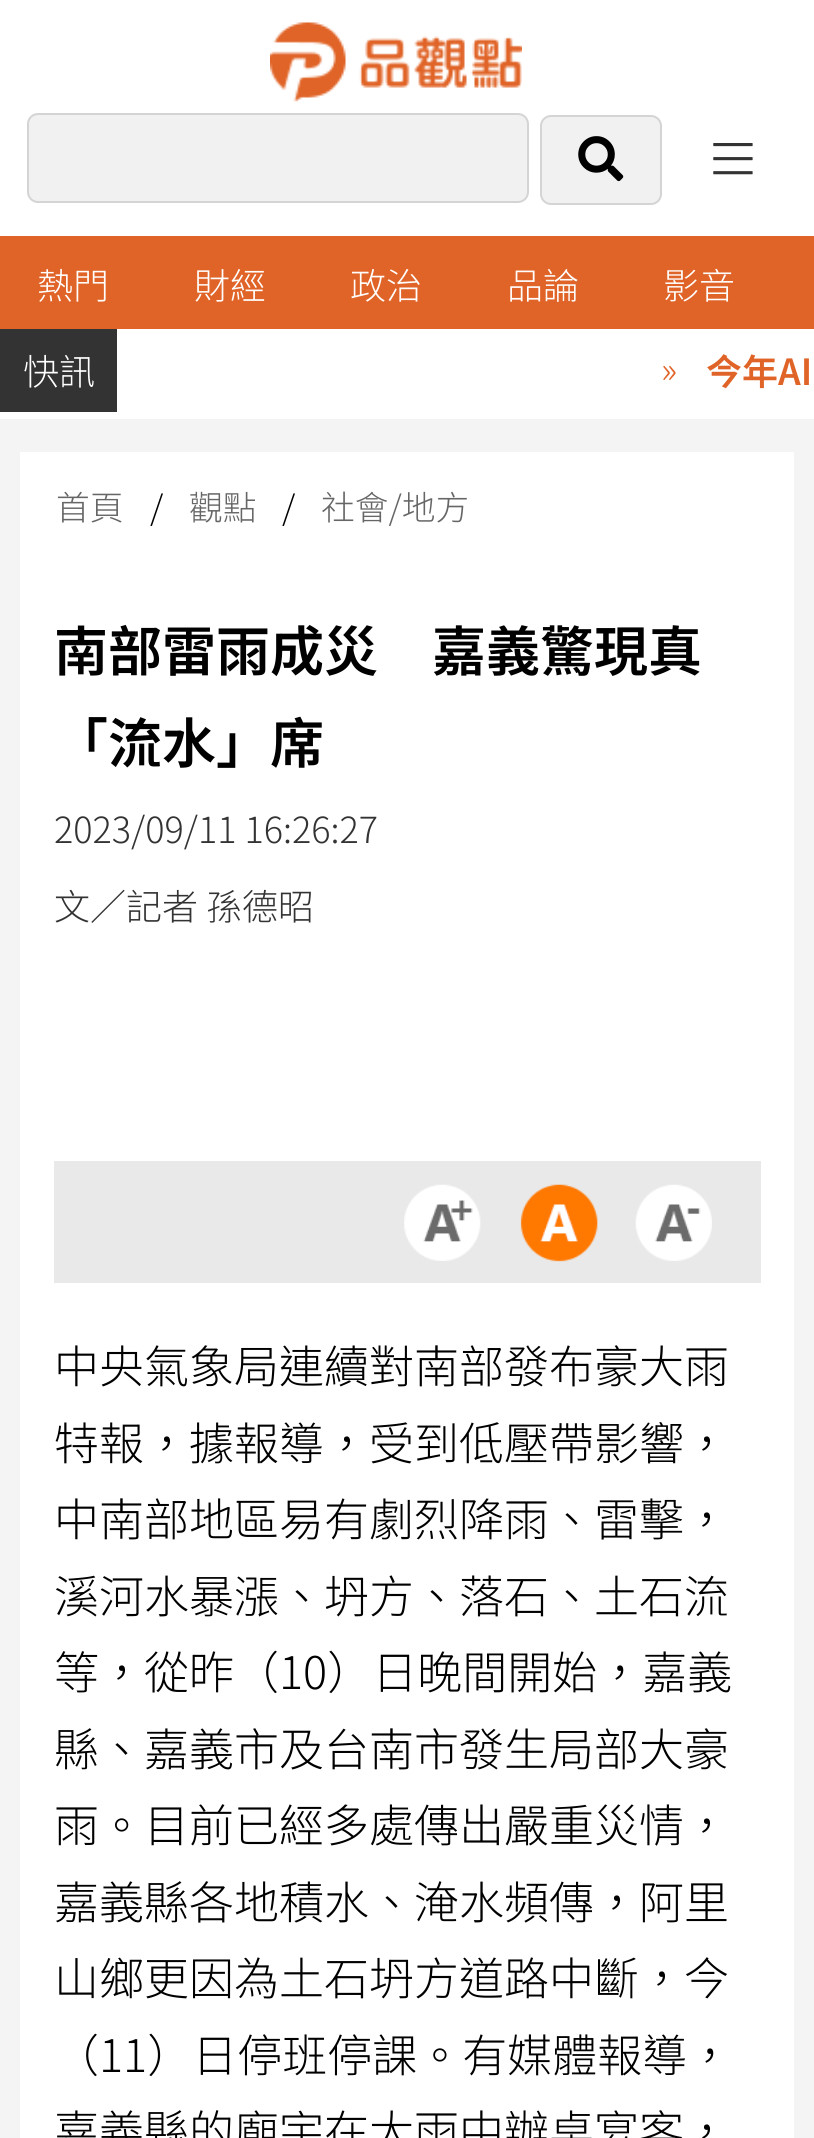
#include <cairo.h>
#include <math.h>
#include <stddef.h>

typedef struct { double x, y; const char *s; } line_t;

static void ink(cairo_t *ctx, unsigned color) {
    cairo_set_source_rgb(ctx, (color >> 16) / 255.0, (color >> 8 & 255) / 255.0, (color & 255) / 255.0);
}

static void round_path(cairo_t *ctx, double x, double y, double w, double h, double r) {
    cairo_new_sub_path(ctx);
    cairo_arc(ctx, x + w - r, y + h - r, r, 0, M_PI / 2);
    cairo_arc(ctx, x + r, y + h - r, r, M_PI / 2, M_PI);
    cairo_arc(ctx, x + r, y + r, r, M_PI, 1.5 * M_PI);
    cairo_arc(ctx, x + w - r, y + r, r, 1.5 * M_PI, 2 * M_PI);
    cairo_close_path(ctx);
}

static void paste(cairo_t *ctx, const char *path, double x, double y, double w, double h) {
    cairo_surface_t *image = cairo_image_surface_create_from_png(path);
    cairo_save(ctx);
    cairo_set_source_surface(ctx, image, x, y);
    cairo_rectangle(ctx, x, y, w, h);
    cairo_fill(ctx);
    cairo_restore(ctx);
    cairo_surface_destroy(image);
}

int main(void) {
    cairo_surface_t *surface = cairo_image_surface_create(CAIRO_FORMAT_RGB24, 814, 2138);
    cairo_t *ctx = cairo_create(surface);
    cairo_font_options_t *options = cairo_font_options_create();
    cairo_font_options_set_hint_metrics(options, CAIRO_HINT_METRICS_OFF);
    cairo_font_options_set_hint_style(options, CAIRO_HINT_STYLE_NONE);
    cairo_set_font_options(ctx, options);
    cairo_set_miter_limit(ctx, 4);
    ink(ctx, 0xF4F4F4);
    cairo_paint(ctx);
    ink(ctx, 0xFFFFFF);
    cairo_rectangle(ctx, 0, 0, 814, 236);
    cairo_fill(ctx);
    paste(ctx, "media/1.png", 270, 22, 252, 80);
    ink(ctx, 0xF1F1F1);
    round_path(ctx, 28, 114, 500, 88, 10);
    cairo_fill_preserve(ctx);
    ink(ctx, 0xD4D4D4);
    cairo_stroke(ctx);
    ink(ctx, 0xF1F1F1);
    round_path(ctx, 541, 116, 120, 88, 10);
    cairo_fill_preserve(ctx);
    ink(ctx, 0xD4D4D4);
    cairo_stroke(ctx);
    paste(ctx, "media/2.png", 578, 136, 46, 46);
    paste(ctx, "media/3.png", 713, 143, 40, 32);
    ink(ctx, 0xE06428);
    cairo_rectangle(ctx, 0, 236, 814, 93);
    cairo_fill(ctx);
    cairo_select_font_face(ctx, "Noto Sans TC Light", CAIRO_FONT_SLANT_NORMAL, CAIRO_FONT_WEIGHT_NORMAL);
    cairo_set_font_size(ctx, 36);
    ink(ctx, 0xFFFFFF);
    {
        static const line_t items[] = {
            {37, 299, "熱門"},
            {194, 299, "財經"},
            {350, 299, "政治"},
            {507, 299, "品論"},
            {663, 299, "影音"},
        };
        for (size_t i = 0; i < sizeof items / sizeof *items; i++) {
            cairo_move_to(ctx, items[i].x, items[i].y);
            cairo_show_text(ctx, items[i].s);
        }
    }
    cairo_rectangle(ctx, 0, 329, 814, 90);
    cairo_fill(ctx);
    ink(ctx, 0x333333);
    cairo_rectangle(ctx, 0, 329, 117, 83);
    cairo_fill(ctx);
    ink(ctx, 0xFFFFFF);
    cairo_move_to(ctx, 23, 385);
    cairo_show_text(ctx, "快訊");
    ink(ctx, 0xE06428);
    cairo_move_to(ctx, 661, 383);
    cairo_show_text(ctx, "»");
    cairo_select_font_face(ctx, "Noto Sans TC SemiBold", CAIRO_FONT_SLANT_NORMAL, CAIRO_FONT_WEIGHT_NORMAL);
    cairo_move_to(ctx, 706, 385);
    cairo_show_text(ctx, "今年AI");
    ink(ctx, 0xFFFFFF);
    cairo_rectangle(ctx, 20, 452, 774, 1686);
    cairo_fill(ctx);
    cairo_select_font_face(ctx, "Noto Sans TC Light", CAIRO_FONT_SLANT_NORMAL, CAIRO_FONT_WEIGHT_NORMAL);
    cairo_set_font_size(ctx, 33.75);
    ink(ctx, 0x666666);
    cairo_move_to(ctx, 56, 520);
    cairo_show_text(ctx, "首頁");
    ink(ctx, 0x000000);
    cairo_move_to(ctx, 150, 520);
    cairo_show_text(ctx, "/");
    ink(ctx, 0x666666);
    cairo_move_to(ctx, 189, 520);
    cairo_show_text(ctx, "觀點");
    ink(ctx, 0x000000);
    cairo_move_to(ctx, 282, 520);
    cairo_show_text(ctx, "/");
    ink(ctx, 0x666666);
    cairo_move_to(ctx, 321, 520);
    cairo_show_text(ctx, "社會/地方");
    cairo_select_font_face(ctx, "Noto Sans TC SemiBold", CAIRO_FONT_SLANT_NORMAL, CAIRO_FONT_WEIGHT_NORMAL);
    cairo_set_font_size(ctx, 54);
    ink(ctx, 0x000000);
    cairo_move_to(ctx, 54, 671);
    cairo_show_text(ctx, "南部雷雨成災　嘉義驚現真");
    cairo_move_to(ctx, 54, 763);
    cairo_show_text(ctx, "「流水」席");
    cairo_select_font_face(ctx, "Noto Sans TC Light", CAIRO_FONT_SLANT_NORMAL, CAIRO_FONT_WEIGHT_NORMAL);
    cairo_set_font_size(ctx, 36);
    ink(ctx, 0x333333);
    cairo_move_to(ctx, 54, 843);
    cairo_show_text(ctx, "2023/09/11 16:26:27");
    cairo_move_to(ctx, 54, 920);
    cairo_show_text(ctx, "文／記者 孫德昭");
    ink(ctx, 0xE9E9E9);
    cairo_rectangle(ctx, 54, 1161, 707, 122);
    cairo_fill(ctx);
    paste(ctx, "media/4.png", 404, 1184, 77, 77);
    paste(ctx, "media/5.png", 520, 1184, 78, 78);
    paste(ctx, "media/6.png", 635, 1184, 77, 77);
    cairo_set_font_size(ctx, 45);
    ink(ctx, 0x000000);
    {
        static const line_t items[] = {
            {54, 1383, "中央氣象局連續對南部發布豪大雨"},
            {54, 1460, "特報，據報導，受到低壓帶影響，"},
            {54, 1536, "中南部地區易有劇烈降雨、雷擊，"},
            {54, 1613, "溪河水暴漲、坍方、落石、土石流"},
            {54, 1689, "等，從昨（10）日晚間開始，嘉義"},
            {54, 1766, "縣、嘉義市及台南市發生局部大豪"},
            {54, 1842, "雨。目前已經多處傳出嚴重災情，"},
            {54, 1919, "嘉義縣各地積水、淹水頻傳，阿里"},
            {54, 1995, "山鄉更因為土石坍方道路中斷，今"},
            {54, 2072, "（11）日停班停課。有媒體報導，"},
            {54, 2148, "嘉義縣的廟宇在大雨中辦桌宴客，"},
        };
        for (size_t i = 0; i < sizeof items / sizeof *items; i++) {
            cairo_move_to(ctx, items[i].x, items[i].y);
            cairo_show_text(ctx, items[i].s);
        }
    }
    cairo_surface_write_to_png(surface, "image.png");
    cairo_font_options_destroy(options);
    cairo_destroy(ctx);
    cairo_surface_destroy(surface);
    return 0;
}
